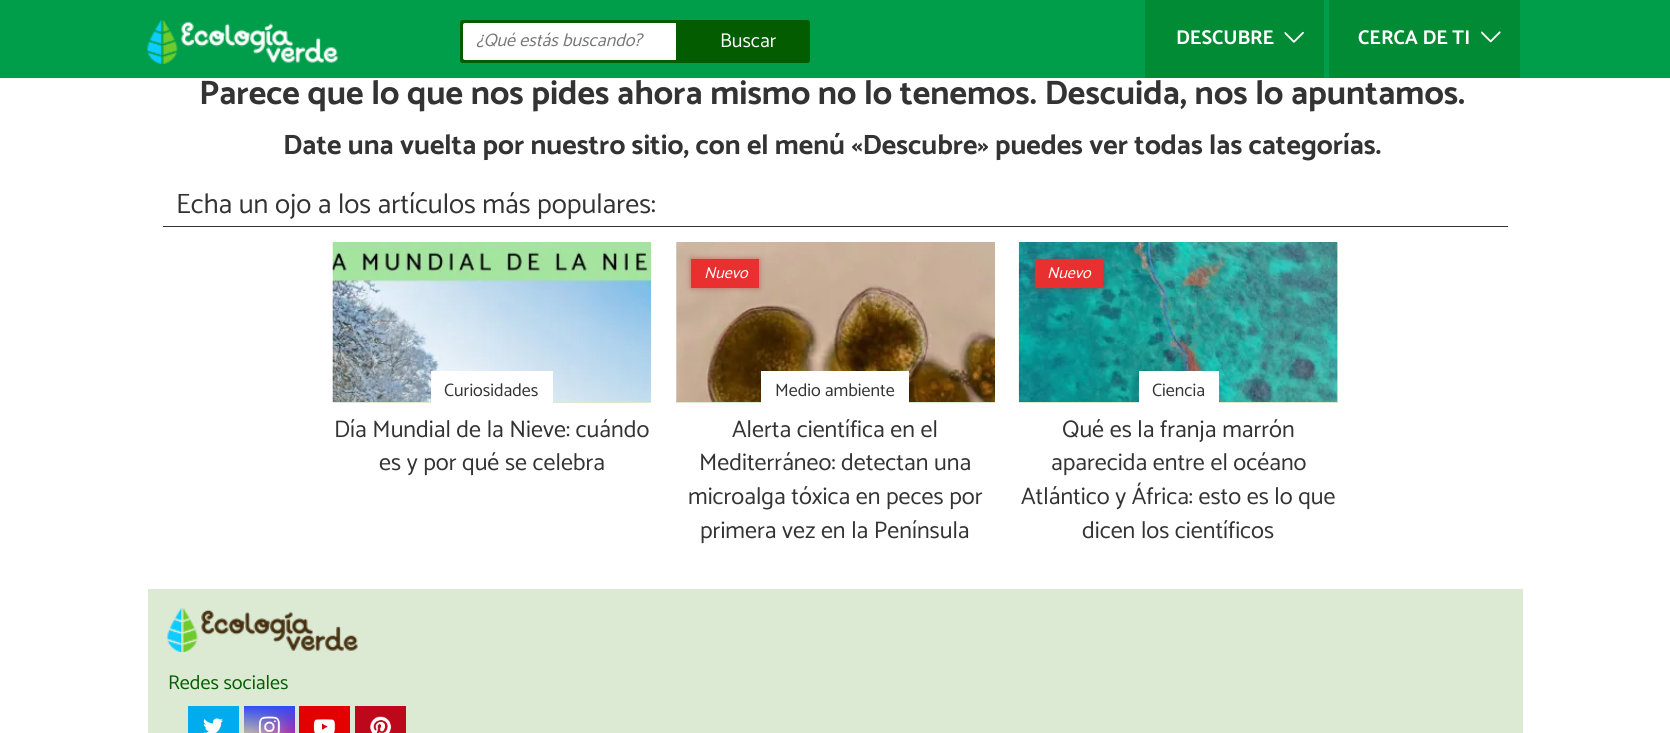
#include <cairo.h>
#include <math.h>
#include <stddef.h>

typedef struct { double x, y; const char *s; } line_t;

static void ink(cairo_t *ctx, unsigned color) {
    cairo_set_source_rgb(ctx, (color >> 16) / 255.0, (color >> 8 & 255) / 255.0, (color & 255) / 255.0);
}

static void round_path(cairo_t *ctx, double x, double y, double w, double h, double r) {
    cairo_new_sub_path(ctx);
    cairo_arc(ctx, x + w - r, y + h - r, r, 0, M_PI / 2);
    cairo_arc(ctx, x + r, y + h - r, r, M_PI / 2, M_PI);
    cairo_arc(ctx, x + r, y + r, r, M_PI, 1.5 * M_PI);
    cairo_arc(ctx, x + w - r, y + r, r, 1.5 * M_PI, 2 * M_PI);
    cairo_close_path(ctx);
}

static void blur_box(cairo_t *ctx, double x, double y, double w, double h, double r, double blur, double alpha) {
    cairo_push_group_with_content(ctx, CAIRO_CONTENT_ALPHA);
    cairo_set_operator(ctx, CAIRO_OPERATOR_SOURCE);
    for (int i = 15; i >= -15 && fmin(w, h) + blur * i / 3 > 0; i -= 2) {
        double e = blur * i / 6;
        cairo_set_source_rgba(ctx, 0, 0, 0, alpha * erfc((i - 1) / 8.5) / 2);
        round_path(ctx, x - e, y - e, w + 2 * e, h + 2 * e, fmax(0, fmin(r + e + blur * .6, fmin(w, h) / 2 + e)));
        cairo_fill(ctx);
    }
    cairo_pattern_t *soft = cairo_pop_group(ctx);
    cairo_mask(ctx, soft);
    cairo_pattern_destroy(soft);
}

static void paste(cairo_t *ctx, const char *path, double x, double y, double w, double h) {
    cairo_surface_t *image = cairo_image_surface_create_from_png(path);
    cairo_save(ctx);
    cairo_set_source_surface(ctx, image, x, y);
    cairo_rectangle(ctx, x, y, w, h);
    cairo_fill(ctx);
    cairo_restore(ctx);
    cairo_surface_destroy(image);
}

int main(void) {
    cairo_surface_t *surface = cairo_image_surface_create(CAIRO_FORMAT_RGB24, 1670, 733);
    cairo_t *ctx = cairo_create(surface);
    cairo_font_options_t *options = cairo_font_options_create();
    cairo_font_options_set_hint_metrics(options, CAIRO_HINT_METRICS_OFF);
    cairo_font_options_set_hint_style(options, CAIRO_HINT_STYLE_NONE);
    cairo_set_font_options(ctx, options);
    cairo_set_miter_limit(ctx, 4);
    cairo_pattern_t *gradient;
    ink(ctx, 0xFFFFFF);
    cairo_paint(ctx);
    ink(ctx, 0x009E4A);
    cairo_rectangle(ctx, 0, 0, 1670, 78);
    cairo_fill(ctx);
    paste(ctx, "media/1.png", 147, 20, 191, 44);
    ink(ctx, 0x035D00);
    round_path(ctx, 460, 20, 350, 43, 2.5);
    cairo_fill(ctx);
    ink(ctx, 0xFFFFFF);
    cairo_new_path(ctx);
    cairo_move_to(ctx, 465, 21.5);
    cairo_line_to(ctx, 677.5, 21.5);
    cairo_line_to(ctx, 677.5, 61.5);
    cairo_line_to(ctx, 465, 61.5);
    cairo_curve_to(ctx, 463, 61.5, 461.5, 60, 461.5, 58);
    cairo_line_to(ctx, 461.5, 25);
    cairo_curve_to(ctx, 461.5, 23, 463, 21.5, 465, 21.5);
    cairo_close_path(ctx);
    cairo_fill_preserve(ctx);
    ink(ctx, 0x035D00);
    cairo_set_line_width(ctx, 3);
    cairo_stroke(ctx);
    cairo_select_font_face(ctx, "Catamaran", CAIRO_FONT_SLANT_ITALIC, CAIRO_FONT_WEIGHT_NORMAL);
    cairo_set_font_size(ctx, 18);
    ink(ctx, 0x777777);
    cairo_move_to(ctx, 476, 46);
    cairo_show_text(ctx, "¿Qué estás buscando?");
    cairo_select_font_face(ctx, "Catamaran", CAIRO_FONT_SLANT_NORMAL, CAIRO_FONT_WEIGHT_NORMAL);
    cairo_set_font_size(ctx, 20);
    ink(ctx, 0xFFFFFF);
    cairo_move_to(ctx, 720, 47);
    cairo_show_text(ctx, "Buscar");
    ink(ctx, 0x018B34);
    cairo_rectangle(ctx, 1145, 0, 179, 78);
    cairo_fill(ctx);
    cairo_select_font_face(ctx, "Catamaran", CAIRO_FONT_SLANT_NORMAL, CAIRO_FONT_WEIGHT_BOLD);
    ink(ctx, 0xFFFFFF);
    cairo_move_to(ctx, 1176, 44);
    cairo_show_text(ctx, "DESCUBRE");
    paste(ctx, "media/2.png", 1284, 31, 20, 12);
    ink(ctx, 0x018B34);
    cairo_rectangle(ctx, 1329, 0, 191, 78);
    cairo_fill(ctx);
    ink(ctx, 0xFFFFFF);
    cairo_move_to(ctx, 1358, 44);
    cairo_show_text(ctx, "CERCA DE TI");
    paste(ctx, "media/3.png", 1481, 31, 20, 12);
    cairo_set_font_size(ctx, 34);
    ink(ctx, 0x333333);
    cairo_move_to(ctx, 199, 104);
    cairo_show_text(ctx, "Parece que lo que nos pides ahora mismo no lo tenemos. Descuida, nos lo apuntamos.");
    cairo_set_font_size(ctx, 28);
    cairo_move_to(ctx, 283, 154);
    cairo_show_text(ctx, "Date una vuelta por nuestro sitio, con el menú «Descubre» puedes ver todas las categorías.");
    cairo_rectangle(ctx, 163, 226, 1345, 1);
    cairo_fill(ctx);
    cairo_select_font_face(ctx, "Catamaran", CAIRO_FONT_SLANT_NORMAL, CAIRO_FONT_WEIGHT_NORMAL);
    cairo_move_to(ctx, 176, 213);
    cairo_show_text(ctx, "Echa un ojo a los artículos más populares:");
    ink(ctx, 0xDCEAD4);
    cairo_rectangle(ctx, 333, 402, 318, 1);
    cairo_fill(ctx);
    paste(ctx, "media/4.png", 332, 242, 320, 160);
    ink(ctx, 0xFFFFFF);
    cairo_rectangle(ctx, 431, 371, 122, 32);
    cairo_fill(ctx);
    cairo_set_font_size(ctx, 18);
    ink(ctx, 0x333333);
    cairo_move_to(ctx, 444, 396);
    cairo_show_text(ctx, "Curiosidades");
    cairo_set_font_size(ctx, 24);
    cairo_move_to(ctx, 334, 437);
    cairo_show_text(ctx, "Día Mundial de la Nieve: cuándo");
    cairo_move_to(ctx, 379, 470);
    cairo_show_text(ctx, "es y por qué se celebra");
    ink(ctx, 0xDCEAD4);
    cairo_rectangle(ctx, 676, 243, 319, 160);
    cairo_fill(ctx);
    paste(ctx, "media/5.png", 676, 242, 319, 160);
    ink(ctx, 0xB31A1A);
    blur_box(ctx, 691, 259, 68, 29, 0, 3, 0.5);
    ink(ctx, 0xE83030);
    cairo_rectangle(ctx, 691, 259, 68, 29);
    cairo_fill(ctx);
    cairo_select_font_face(ctx, "Catamaran", CAIRO_FONT_SLANT_ITALIC, CAIRO_FONT_WEIGHT_NORMAL);
    cairo_set_font_size(ctx, 16);
    ink(ctx, 0xFFFFFF);
    cairo_move_to(ctx, 704, 278);
    cairo_show_text(ctx, "Nuevo");
    cairo_rectangle(ctx, 761, 371, 148, 32);
    cairo_fill(ctx);
    cairo_select_font_face(ctx, "Catamaran", CAIRO_FONT_SLANT_NORMAL, CAIRO_FONT_WEIGHT_NORMAL);
    cairo_set_font_size(ctx, 18);
    ink(ctx, 0x333333);
    cairo_move_to(ctx, 775, 396);
    cairo_show_text(ctx, "Medio ambiente");
    cairo_set_font_size(ctx, 24);
    {
        static const line_t items[] = {
            {732, 437, "Alerta científica en el"},
            {699, 470, "Mediterráneo: detectan una"},
            {688, 504, "microalga tóxica en peces por"},
            {700, 538, "primera vez en la Península"},
        };
        for (size_t i = 0; i < sizeof items / sizeof *items; i++) {
            cairo_move_to(ctx, items[i].x, items[i].y);
            cairo_show_text(ctx, items[i].s);
        }
    }
    ink(ctx, 0xDCEAD4);
    cairo_rectangle(ctx, 1019, 243, 319, 160);
    cairo_fill(ctx);
    paste(ctx, "media/6.png", 1018, 242, 320, 160);
    ink(ctx, 0xB31A1A);
    blur_box(ctx, 1035, 259, 68, 29, 0, 3, 0.5);
    ink(ctx, 0xE83030);
    cairo_rectangle(ctx, 1035, 259, 68, 29);
    cairo_fill(ctx);
    cairo_select_font_face(ctx, "Catamaran", CAIRO_FONT_SLANT_ITALIC, CAIRO_FONT_WEIGHT_NORMAL);
    cairo_set_font_size(ctx, 16);
    ink(ctx, 0xFFFFFF);
    cairo_move_to(ctx, 1047, 278);
    cairo_show_text(ctx, "Nuevo");
    cairo_rectangle(ctx, 1139, 371, 80, 32);
    cairo_fill(ctx);
    cairo_select_font_face(ctx, "Catamaran", CAIRO_FONT_SLANT_NORMAL, CAIRO_FONT_WEIGHT_NORMAL);
    cairo_set_font_size(ctx, 18);
    ink(ctx, 0x333333);
    cairo_move_to(ctx, 1152, 396);
    cairo_show_text(ctx, "Ciencia");
    cairo_set_font_size(ctx, 24);
    {
        static const line_t items[] = {
            {1062, 437, "Qué es la franja marrón"},
            {1051, 470, "aparecida entre el océano"},
            {1021, 504, "Atlántico y África: esto es lo que"},
            {1082, 538, "dicen los científicos"},
        };
        for (size_t i = 0; i < sizeof items / sizeof *items; i++) {
            cairo_move_to(ctx, items[i].x, items[i].y);
            cairo_show_text(ctx, items[i].s);
        }
    }
    ink(ctx, 0xDCEAD4);
    cairo_rectangle(ctx, 148, 589, 1375, 144);
    cairo_fill(ctx);
    paste(ctx, "media/7.png", 167, 608, 191, 44);
    cairo_set_font_size(ctx, 20);
    ink(ctx, 0x035D00);
    cairo_move_to(ctx, 168, 689);
    cairo_show_text(ctx, "Redes sociales");
    ink(ctx, 0x00ACED);
    cairo_rectangle(ctx, 188, 706, 51, 27);
    cairo_fill(ctx);
    paste(ctx, "media/8.png", 203, 718, 21, 15);
    gradient = cairo_pattern_create_linear(295, 726, 244, 726);
    cairo_pattern_add_color_stop_rgba(gradient, 0, 0.945, 0.106, 0.392, 1);
    cairo_pattern_add_color_stop_rgba(gradient, 1, 0.863, 0.918, 0.831, 1);
    cairo_set_source(ctx, gradient);
    cairo_pattern_destroy(gradient);
    cairo_rectangle(ctx, 245, 706, 50, 27);
    cairo_fill(ctx);
    gradient = cairo_pattern_create_linear(295, 726, 244, 726);
    cairo_pattern_add_color_stop_rgba(gradient, 0, 0.886, 0.098, 0.557, 1);
    cairo_pattern_add_color_stop_rgba(gradient, 1, 0.886, 0.098, 0.557, 0);
    cairo_set_source(ctx, gradient);
    cairo_pattern_destroy(gradient);
    cairo_rectangle(ctx, 245, 706, 50, 27);
    cairo_fill(ctx);
    gradient = cairo_pattern_create_linear(244, 726, 295, 726);
    cairo_pattern_add_color_stop_rgba(gradient, 0, 0.996, 0.886, 0.522, 1);
    cairo_pattern_add_color_stop_rgba(gradient, 1, 0.996, 0.886, 0.522, 0);
    cairo_set_source(ctx, gradient);
    cairo_pattern_destroy(gradient);
    cairo_rectangle(ctx, 244, 706, 50, 27);
    cairo_fill(ctx);
    gradient = cairo_pattern_create_linear(269, 706, 269, 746);
    cairo_pattern_add_color_stop_rgba(gradient, 0, 0.18, 0.302, 0.957, 1);
    cairo_pattern_add_color_stop_rgba(gradient, 1, 0.18, 0.302, 0.957, 0);
    cairo_set_source(ctx, gradient);
    cairo_pattern_destroy(gradient);
    cairo_rectangle(ctx, 244, 706, 51, 27);
    cairo_fill(ctx);
    paste(ctx, "media/9.png", 258, 716, 23, 17);
    ink(ctx, 0xE30000);
    cairo_rectangle(ctx, 299, 706, 51, 27);
    cairo_fill(ctx);
    paste(ctx, "media/10.png", 313, 719, 23, 14);
    ink(ctx, 0xBD081C);
    cairo_rectangle(ctx, 355, 706, 51, 27);
    cairo_fill(ctx);
    paste(ctx, "media/11.png", 370, 716, 22, 17);
    cairo_surface_write_to_png(surface, "image.png");
    cairo_font_options_destroy(options);
    cairo_destroy(ctx);
    cairo_surface_destroy(surface);
    return 0;
}
